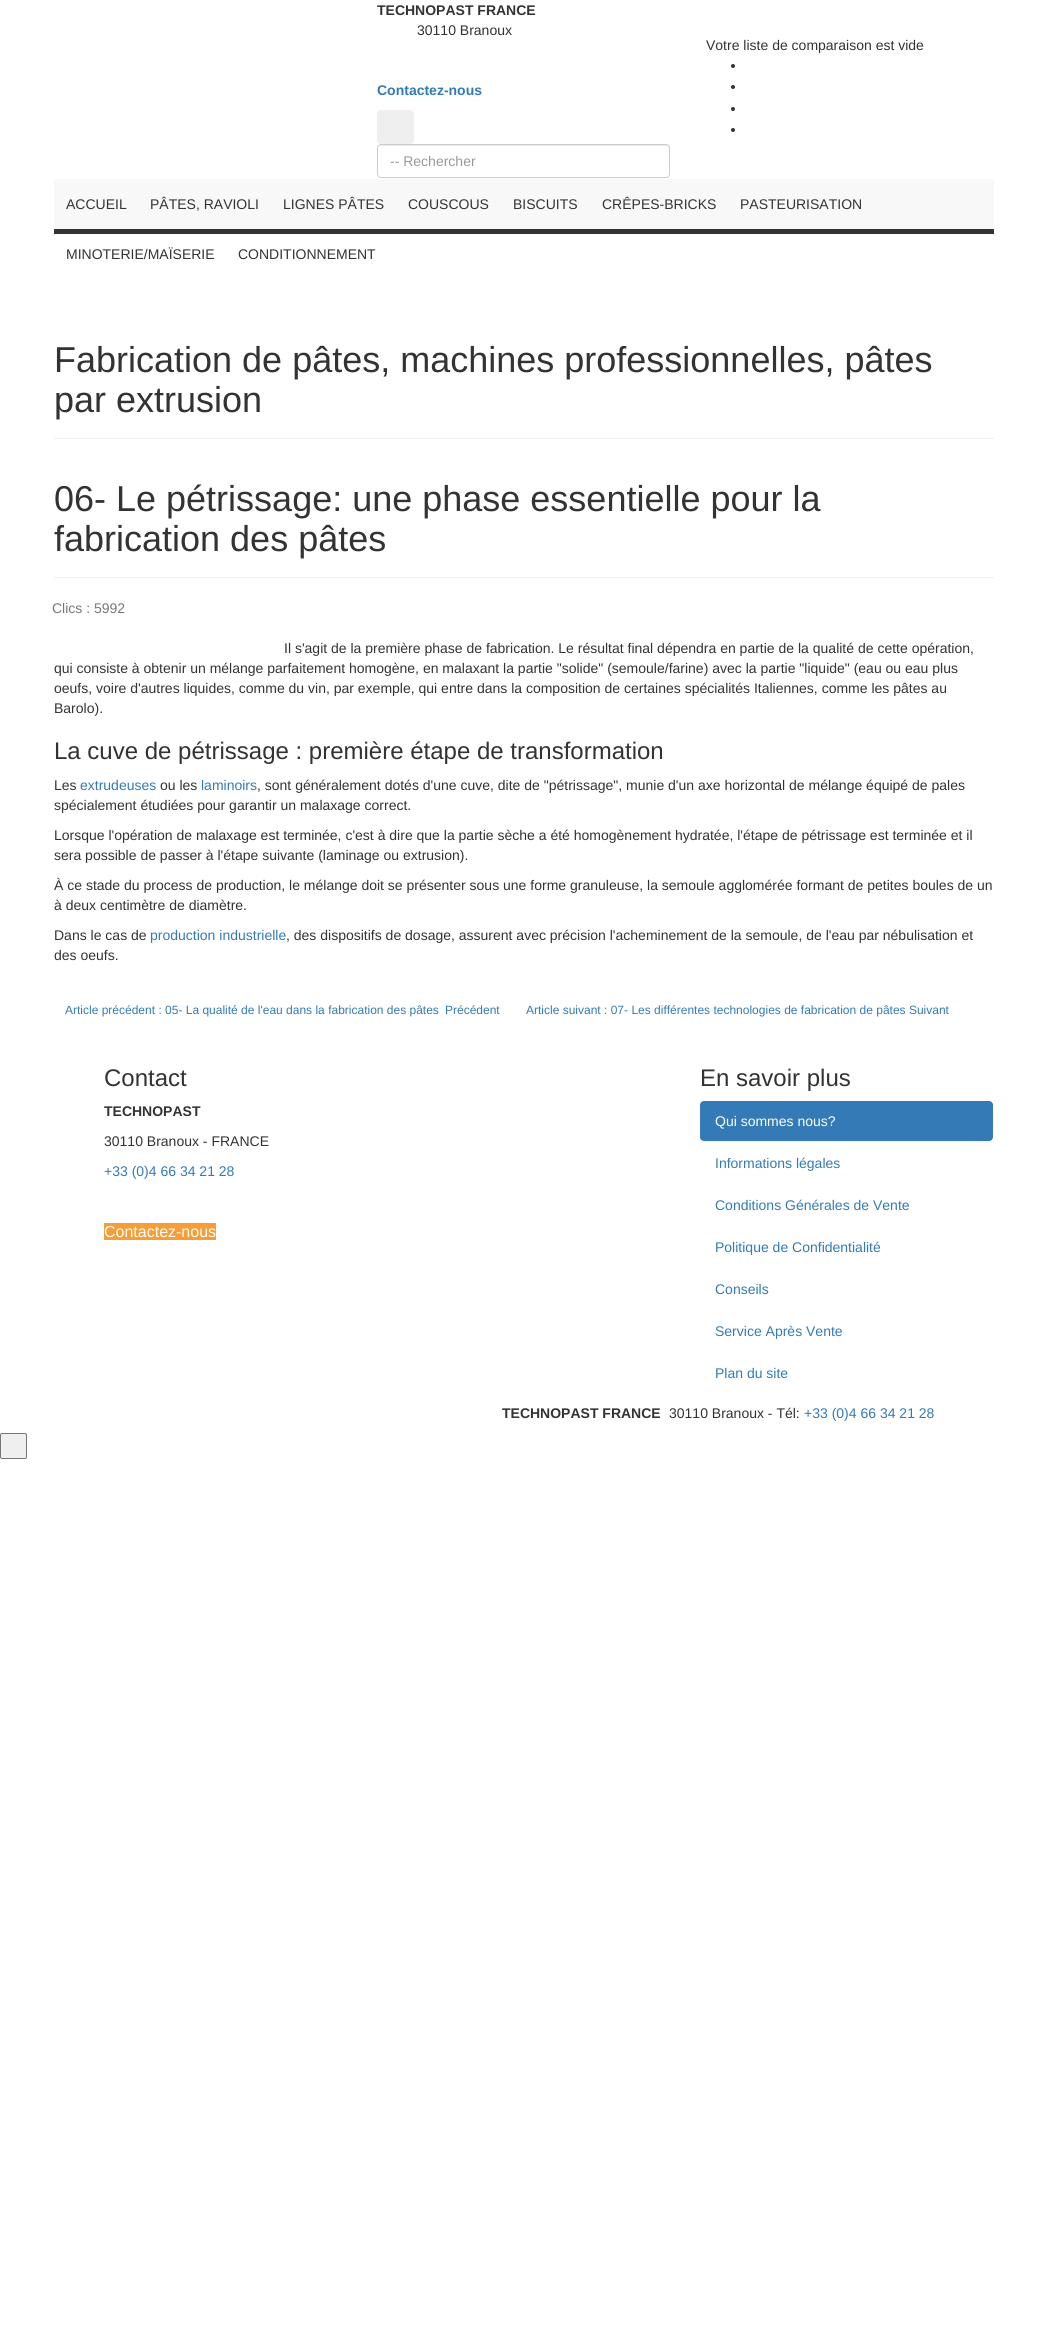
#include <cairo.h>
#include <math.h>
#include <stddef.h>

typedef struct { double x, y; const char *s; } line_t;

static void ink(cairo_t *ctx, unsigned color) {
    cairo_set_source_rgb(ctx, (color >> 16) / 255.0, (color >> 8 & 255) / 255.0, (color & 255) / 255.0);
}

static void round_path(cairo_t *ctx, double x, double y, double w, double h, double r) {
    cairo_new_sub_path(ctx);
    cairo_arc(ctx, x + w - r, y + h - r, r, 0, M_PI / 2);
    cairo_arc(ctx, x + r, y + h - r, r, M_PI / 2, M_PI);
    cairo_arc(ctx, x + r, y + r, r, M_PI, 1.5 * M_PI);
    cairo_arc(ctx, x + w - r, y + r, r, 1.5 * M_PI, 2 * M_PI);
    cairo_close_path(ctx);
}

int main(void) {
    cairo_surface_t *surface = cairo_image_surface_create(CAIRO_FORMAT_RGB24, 1047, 2343);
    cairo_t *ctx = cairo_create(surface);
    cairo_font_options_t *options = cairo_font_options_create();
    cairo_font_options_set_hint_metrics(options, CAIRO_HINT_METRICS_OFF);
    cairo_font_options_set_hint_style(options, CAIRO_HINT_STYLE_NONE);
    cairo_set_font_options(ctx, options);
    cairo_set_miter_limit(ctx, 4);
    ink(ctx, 0xFFFFFF);
    cairo_paint(ctx);
    cairo_select_font_face(ctx, "Liberation Sans", CAIRO_FONT_SLANT_NORMAL, CAIRO_FONT_WEIGHT_BOLD);
    cairo_set_font_size(ctx, 14);
    ink(ctx, 0x333333);
    cairo_move_to(ctx, 377, 15);
    cairo_show_text(ctx, "TECHNOPAST FRANCE");
    cairo_select_font_face(ctx, "Liberation Sans", CAIRO_FONT_SLANT_NORMAL, CAIRO_FONT_WEIGHT_NORMAL);
    cairo_move_to(ctx, 417, 35);
    cairo_show_text(ctx, "30110 Branoux");
    cairo_select_font_face(ctx, "Liberation Sans", CAIRO_FONT_SLANT_NORMAL, CAIRO_FONT_WEIGHT_BOLD);
    ink(ctx, 0x337AB7);
    cairo_move_to(ctx, 377, 95);
    cairo_show_text(ctx, "Contactez-nous");
    ink(ctx, 0xEFEFEF);
    round_path(ctx, 377, 110, 37, 34, 4);
    cairo_fill(ctx);
    ink(ctx, 0xECECEC);
    cairo_new_path(ctx);
    cairo_move_to(ctx, 381, 146);
    cairo_line_to(ctx, 666, 146);
    cairo_curve_to(ctx, 668, 146, 669, 147, 669, 149);
    cairo_curve_to(ctx, 669, 147, 668, 145, 666, 145);
    cairo_line_to(ctx, 381, 145);
    cairo_curve_to(ctx, 379, 145, 378, 147, 378, 149);
    cairo_curve_to(ctx, 378, 147, 379, 146, 381, 146);
    cairo_close_path(ctx);
    cairo_fill(ctx);
    round_path(ctx, 377.5, 144.5, 292, 33, 3.5);
    ink(ctx, 0xCCCCCC);
    cairo_set_line_width(ctx, 1);
    cairo_stroke(ctx);
    cairo_select_font_face(ctx, "Liberation Sans", CAIRO_FONT_SLANT_NORMAL, CAIRO_FONT_WEIGHT_NORMAL);
    ink(ctx, 0x999999);
    cairo_move_to(ctx, 390, 166);
    cairo_show_text(ctx, "-- Rechercher");
    ink(ctx, 0x333333);
    cairo_move_to(ctx, 706, 50);
    cairo_show_text(ctx, "Votre liste de comparaison est vide");
    cairo_new_path(ctx);
    cairo_arc(ctx, 733, 66, 2, 0, 2 * M_PI);
    cairo_fill(ctx);
    cairo_arc(ctx, 733, 87, 2, 0, 2 * M_PI);
    cairo_fill(ctx);
    cairo_arc(ctx, 733, 109, 2, 0, 2 * M_PI);
    cairo_fill(ctx);
    cairo_arc(ctx, 733, 130, 2, 0, 2 * M_PI);
    cairo_fill(ctx);
    ink(ctx, 0xF8F8F8);
    cairo_rectangle(ctx, 54, 179, 940, 50);
    cairo_fill(ctx);
    ink(ctx, 0x333333);
    cairo_rectangle(ctx, 54, 229, 940, 5);
    cairo_fill(ctx);
    {
        static const line_t items[] = {
            {66, 209, "ACCUEIL"},
            {150, 209, "PÂTES, RAVIOLI"},
            {283, 209, "LIGNES PÂTES"},
            {408, 209, "COUSCOUS"},
            {513, 209, "BISCUITS"},
            {602, 209, "CRÊPES-BRICKS"},
            {740, 209, "PASTEURISATION"},
            {66, 259, "MINOTERIE/MAÏSERIE"},
            {238, 259, "CONDITIONNEMENT"},
        };
        for (size_t i = 0; i < sizeof items / sizeof *items; i++) {
            cairo_move_to(ctx, items[i].x, items[i].y);
            cairo_show_text(ctx, items[i].s);
        }
    }
    ink(ctx, 0xEEEEEE);
    cairo_rectangle(ctx, 54, 438, 940, 1);
    cairo_fill(ctx);
    cairo_set_font_size(ctx, 36);
    ink(ctx, 0x333333);
    cairo_move_to(ctx, 54, 372);
    cairo_show_text(ctx, "Fabrication de pâtes, machines professionnelles, pâtes");
    cairo_move_to(ctx, 54, 412);
    cairo_show_text(ctx, "par extrusion");
    ink(ctx, 0xEEEEEE);
    cairo_rectangle(ctx, 54, 577, 940, 1);
    cairo_fill(ctx);
    ink(ctx, 0x333333);
    cairo_move_to(ctx, 54, 511);
    cairo_show_text(ctx, "06- Le pétrissage: une phase essentielle pour la");
    cairo_move_to(ctx, 54, 551);
    cairo_show_text(ctx, "fabrication des pâtes");
    cairo_set_font_size(ctx, 14);
    ink(ctx, 0x777777);
    cairo_move_to(ctx, 52, 613);
    cairo_show_text(ctx, "Clics : 5992");
    ink(ctx, 0x333333);
    {
        static const line_t items[] = {
            {284, 653, "Il s'agit de la première phase de fabrication. Le résultat final dépendra en partie de la qualité de cette opération,"},
            {54, 673, "qui consiste à obtenir un mélange parfaitement homogène, en malaxant la partie \"solide\" (semoule/farine) avec la partie \"liquide\" (eau ou eau plus"},
            {54, 693, "oeufs, voire d'autres liquides, comme du vin, par exemple, qui entre dans la composition de certaines spécialités Italiennes, comme les pâtes au"},
            {54, 713, "Barolo)."},
        };
        for (size_t i = 0; i < sizeof items / sizeof *items; i++) {
            cairo_move_to(ctx, items[i].x, items[i].y);
            cairo_show_text(ctx, items[i].s);
        }
    }
    cairo_set_font_size(ctx, 24);
    cairo_move_to(ctx, 54, 759);
    cairo_show_text(ctx, "La cuve de pétrissage : première étape de transformation");
    cairo_set_font_size(ctx, 14);
    cairo_move_to(ctx, 54, 790);
    cairo_show_text(ctx, "Les");
    ink(ctx, 0x337AB7);
    cairo_move_to(ctx, 80, 790);
    cairo_show_text(ctx, "extrudeuses");
    ink(ctx, 0x333333);
    cairo_move_to(ctx, 160, 790);
    cairo_show_text(ctx, "ou les");
    ink(ctx, 0x337AB7);
    cairo_move_to(ctx, 201, 790);
    cairo_show_text(ctx, "laminoirs");
    ink(ctx, 0x333333);
    {
        static const line_t items[] = {
            {257, 790, ", sont généralement dotés d'une cuve, dite de \"pétrissage\", munie d'un axe horizontal de mélange équipé de pales"},
            {54, 810, "spécialement étudiées pour garantir un malaxage correct."},
            {54, 840, "Lorsque l'opération de malaxage est terminée, c'est à dire que la partie sèche a été homogènement hydratée, l'étape de pétrissage est terminée et il"},
            {54, 860, "sera possible de passer à l'étape suivante (laminage ou extrusion)."},
            {54, 890, "À ce stade du process de production, le mélange doit se présenter sous une forme granuleuse, la semoule agglomérée formant de petites boules de un"},
            {54, 910, "à deux centimètre de diamètre."},
            {54, 940, "Dans le cas de"},
        };
        for (size_t i = 0; i < sizeof items / sizeof *items; i++) {
            cairo_move_to(ctx, items[i].x, items[i].y);
            cairo_show_text(ctx, items[i].s);
        }
    }
    ink(ctx, 0x337AB7);
    cairo_move_to(ctx, 150, 940);
    cairo_show_text(ctx, "production industrielle");
    ink(ctx, 0x333333);
    cairo_move_to(ctx, 286, 940);
    cairo_show_text(ctx, ", des dispositifs de dosage, assurent avec précision l'acheminement de la semoule, de l'eau par nébulisation et");
    cairo_move_to(ctx, 54, 960);
    cairo_show_text(ctx, "des oeufs.");
    cairo_set_font_size(ctx, 12);
    ink(ctx, 0x337AB7);
    {
        static const line_t items[] = {
            {65, 1014, "Article précédent : 05- La qualité de l'eau dans la fabrication des pâtes"},
            {445, 1014, "Précédent"},
            {526, 1014, "Article suivant : 07- Les différentes technologies de fabrication de pâtes Suivant"},
        };
        for (size_t i = 0; i < sizeof items / sizeof *items; i++) {
            cairo_move_to(ctx, items[i].x, items[i].y);
            cairo_show_text(ctx, items[i].s);
        }
    }
    cairo_set_font_size(ctx, 24);
    ink(ctx, 0x333333);
    cairo_move_to(ctx, 104, 1086);
    cairo_show_text(ctx, "Contact");
    cairo_select_font_face(ctx, "Liberation Sans", CAIRO_FONT_SLANT_NORMAL, CAIRO_FONT_WEIGHT_BOLD);
    cairo_set_font_size(ctx, 14);
    cairo_move_to(ctx, 104, 1116);
    cairo_show_text(ctx, "TECHNOPAST");
    cairo_select_font_face(ctx, "Liberation Sans", CAIRO_FONT_SLANT_NORMAL, CAIRO_FONT_WEIGHT_NORMAL);
    cairo_move_to(ctx, 104, 1146);
    cairo_show_text(ctx, "30110 Branoux - FRANCE");
    ink(ctx, 0x337AB7);
    cairo_move_to(ctx, 104, 1176);
    cairo_show_text(ctx, "+33 (0)4 66 34 21 28");
    ink(ctx, 0xF69D36);
    cairo_rectangle(ctx, 104, 1223, 112, 17);
    cairo_fill(ctx);
    cairo_set_font_size(ctx, 16);
    ink(ctx, 0xFFFFFF);
    cairo_move_to(ctx, 104, 1237);
    cairo_show_text(ctx, "Contactez-nous");
    cairo_set_font_size(ctx, 24);
    ink(ctx, 0x333333);
    cairo_move_to(ctx, 700, 1086);
    cairo_show_text(ctx, "En savoir plus");
    ink(ctx, 0x337AB7);
    round_path(ctx, 700, 1101, 293, 40, 4);
    cairo_fill(ctx);
    cairo_set_font_size(ctx, 14);
    ink(ctx, 0xFFFFFF);
    cairo_move_to(ctx, 715, 1126);
    cairo_show_text(ctx, "Qui sommes nous?");
    ink(ctx, 0x337AB7);
    {
        static const line_t items[] = {
            {715, 1168, "Informations légales"},
            {715, 1210, "Conditions Générales de Vente"},
            {715, 1252, "Politique de Confidentialité"},
            {715, 1294, "Conseils"},
            {715, 1336, "Service Après Vente"},
            {715, 1378, "Plan du site"},
        };
        for (size_t i = 0; i < sizeof items / sizeof *items; i++) {
            cairo_move_to(ctx, items[i].x, items[i].y);
            cairo_show_text(ctx, items[i].s);
        }
    }
    cairo_select_font_face(ctx, "Liberation Sans", CAIRO_FONT_SLANT_NORMAL, CAIRO_FONT_WEIGHT_BOLD);
    ink(ctx, 0x333333);
    cairo_move_to(ctx, 502, 1418);
    cairo_show_text(ctx, "TECHNOPAST FRANCE");
    cairo_select_font_face(ctx, "Liberation Sans", CAIRO_FONT_SLANT_NORMAL, CAIRO_FONT_WEIGHT_NORMAL);
    cairo_move_to(ctx, 669, 1418);
    cairo_show_text(ctx, "30110 Branoux - Tél:");
    ink(ctx, 0x337AB7);
    cairo_move_to(ctx, 804, 1418);
    cairo_show_text(ctx, "+33 (0)4 66 34 21 28");
    ink(ctx, 0xEFEFEF);
    round_path(ctx, 0.5, 1433.5, 26, 25, 1.5);
    cairo_fill_preserve(ctx);
    ink(ctx, 0x767676);
    cairo_stroke(ctx);
    cairo_surface_write_to_png(surface, "image.png");
    cairo_font_options_destroy(options);
    cairo_destroy(ctx);
    cairo_surface_destroy(surface);
    return 0;
}
